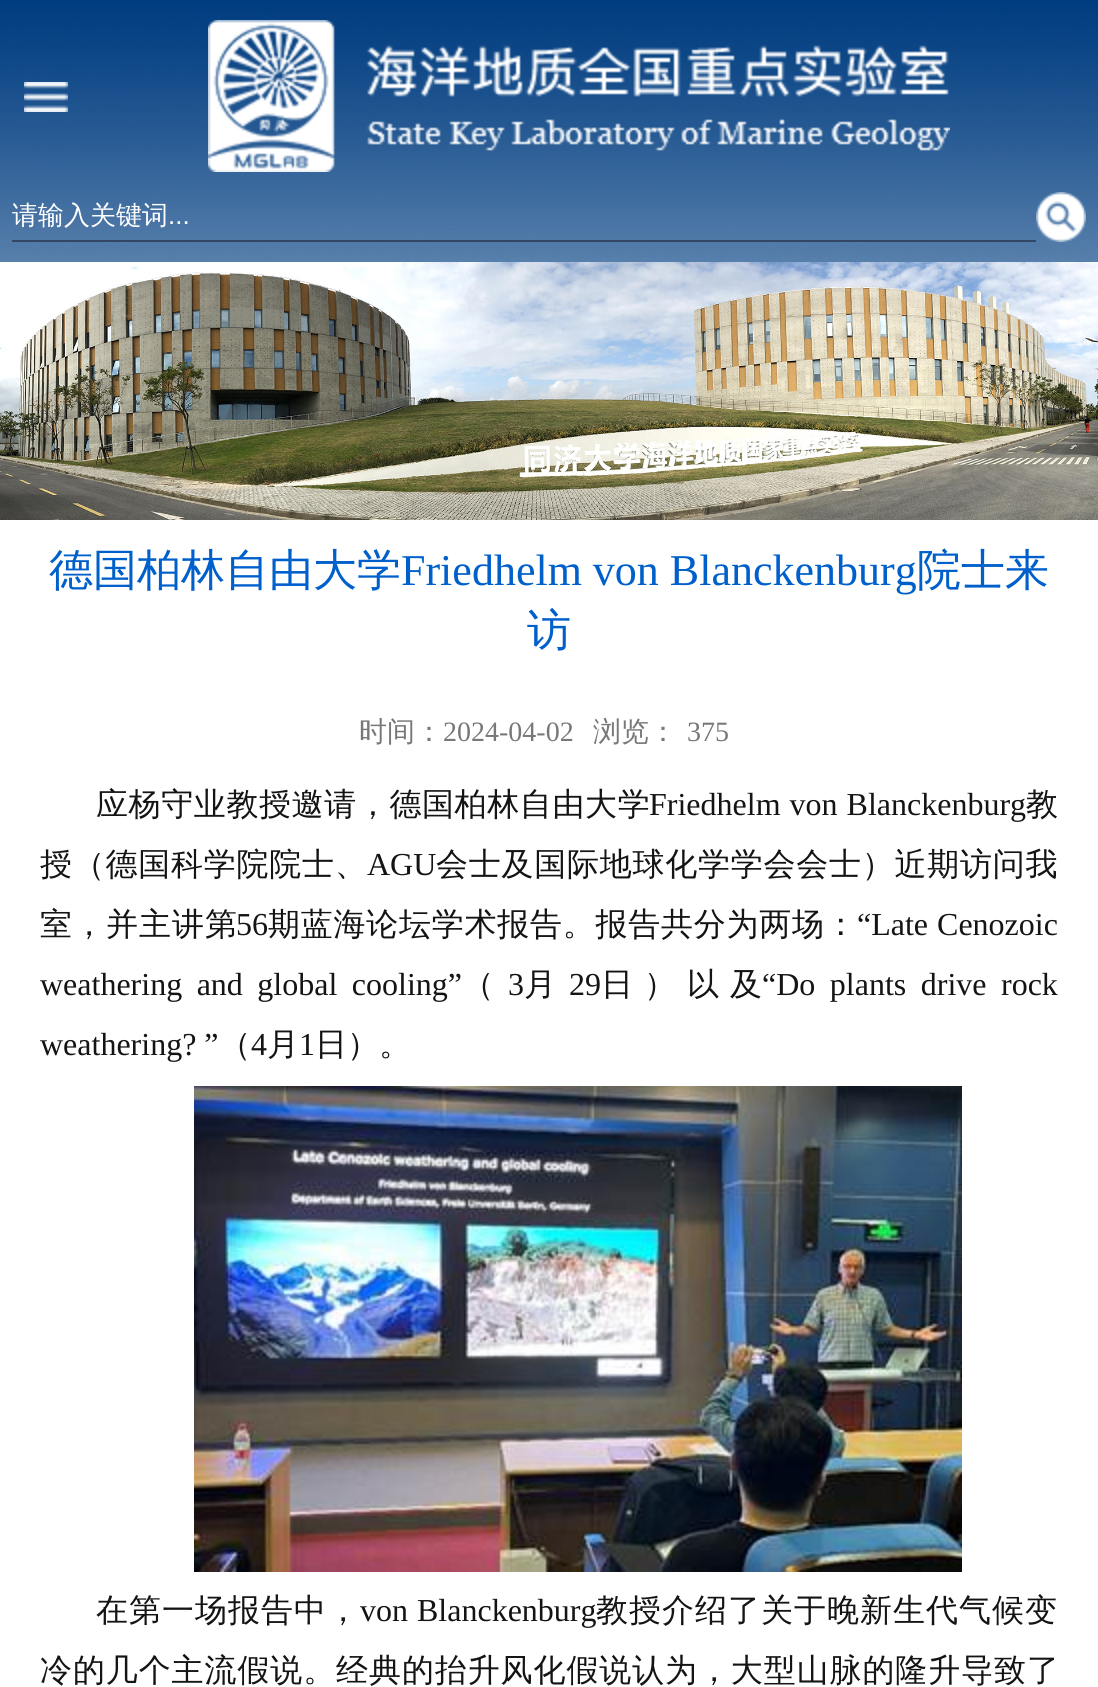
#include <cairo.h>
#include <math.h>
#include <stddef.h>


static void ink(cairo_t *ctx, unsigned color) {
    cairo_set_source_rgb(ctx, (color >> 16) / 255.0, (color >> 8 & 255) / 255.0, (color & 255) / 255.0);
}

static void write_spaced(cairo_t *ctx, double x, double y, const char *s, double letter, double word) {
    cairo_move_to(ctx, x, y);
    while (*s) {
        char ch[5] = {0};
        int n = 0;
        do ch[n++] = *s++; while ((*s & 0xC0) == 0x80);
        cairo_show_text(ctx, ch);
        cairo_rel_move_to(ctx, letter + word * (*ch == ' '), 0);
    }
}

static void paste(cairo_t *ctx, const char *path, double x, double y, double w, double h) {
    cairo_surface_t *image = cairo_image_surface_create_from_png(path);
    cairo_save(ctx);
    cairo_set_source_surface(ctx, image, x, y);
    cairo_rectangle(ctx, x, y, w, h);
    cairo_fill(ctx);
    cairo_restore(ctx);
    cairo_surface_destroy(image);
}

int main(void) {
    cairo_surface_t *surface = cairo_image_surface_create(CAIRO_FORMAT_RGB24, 1098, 1687);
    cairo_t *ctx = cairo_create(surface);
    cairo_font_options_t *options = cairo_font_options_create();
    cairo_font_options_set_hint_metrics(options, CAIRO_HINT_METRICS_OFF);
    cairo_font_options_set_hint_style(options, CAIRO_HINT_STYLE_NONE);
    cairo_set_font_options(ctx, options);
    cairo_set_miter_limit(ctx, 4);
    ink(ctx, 0xFFFFFF);
    cairo_paint(ctx);
    paste(ctx, "media/1.png", 0, 0, 1098, 262);
    paste(ctx, "media/2.png", 24, 82, 44, 30);
    paste(ctx, "media/3.png", 208, 20, 742, 152);
    ink(ctx, 0x334764);
    cairo_rectangle(ctx, 12, 240, 1024, 2);
    cairo_fill(ctx);
    cairo_select_font_face(ctx, "WenQuanYi Zen Hei Medium", CAIRO_FONT_SLANT_NORMAL, CAIRO_FONT_WEIGHT_NORMAL);
    cairo_set_font_size(ctx, 26);
    ink(ctx, 0xFFFFFF);
    cairo_move_to(ctx, 12, 224);
    cairo_show_text(ctx, "请输入关键词");
    cairo_select_font_face(ctx, "Liberation Sans", CAIRO_FONT_SLANT_NORMAL, CAIRO_FONT_WEIGHT_NORMAL);
    cairo_move_to(ctx, 168, 224);
    cairo_show_text(ctx, "...");
    paste(ctx, "media/4.png", 1036, 192, 50, 50);
    paste(ctx, "media/5.png", 0, 262, 1098, 258);
    cairo_select_font_face(ctx, "WenQuanYi Zen Hei Medium", CAIRO_FONT_SLANT_NORMAL, CAIRO_FONT_WEIGHT_NORMAL);
    cairo_set_font_size(ctx, 44);
    ink(ctx, 0x0060CB);
    cairo_move_to(ctx, 49, 585);
    cairo_show_text(ctx, "德国柏林自由大学");
    cairo_select_font_face(ctx, "Liberation Serif", CAIRO_FONT_SLANT_NORMAL, CAIRO_FONT_WEIGHT_NORMAL);
    cairo_move_to(ctx, 401, 585);
    cairo_show_text(ctx, "Friedhelm von Blanckenburg");
    cairo_select_font_face(ctx, "WenQuanYi Zen Hei Medium", CAIRO_FONT_SLANT_NORMAL, CAIRO_FONT_WEIGHT_NORMAL);
    cairo_move_to(ctx, 917, 585);
    cairo_show_text(ctx, "院士来");
    cairo_move_to(ctx, 527, 645);
    cairo_show_text(ctx, "访");
    cairo_set_font_size(ctx, 28);
    ink(ctx, 0x787878);
    cairo_move_to(ctx, 359, 741);
    cairo_show_text(ctx, "时间：");
    cairo_select_font_face(ctx, "Liberation Serif", CAIRO_FONT_SLANT_NORMAL, CAIRO_FONT_WEIGHT_NORMAL);
    cairo_move_to(ctx, 443, 741);
    cairo_show_text(ctx, "2024-04-02");
    cairo_select_font_face(ctx, "WenQuanYi Zen Hei Medium", CAIRO_FONT_SLANT_NORMAL, CAIRO_FONT_WEIGHT_NORMAL);
    cairo_move_to(ctx, 593, 741);
    cairo_show_text(ctx, "浏览：");
    cairo_select_font_face(ctx, "Liberation Serif", CAIRO_FONT_SLANT_NORMAL, CAIRO_FONT_WEIGHT_NORMAL);
    cairo_move_to(ctx, 687, 741);
    cairo_show_text(ctx, "375");
    cairo_select_font_face(ctx, "WenQuanYi Zen Hei Medium", CAIRO_FONT_SLANT_NORMAL, CAIRO_FONT_WEIGHT_NORMAL);
    cairo_set_font_size(ctx, 32);
    ink(ctx, 0x141414);
    write_spaced(ctx, 96, 815, "应杨守业教授邀请，德国柏林自由大学", 0.6, 0);
    cairo_select_font_face(ctx, "Liberation Serif", CAIRO_FONT_SLANT_NORMAL, CAIRO_FONT_WEIGHT_NORMAL);
    write_spaced(ctx, 649, 815, "Friedhelm von Blanckenburg", 0, 1);
    cairo_select_font_face(ctx, "WenQuanYi Zen Hei Medium", CAIRO_FONT_SLANT_NORMAL, CAIRO_FONT_WEIGHT_NORMAL);
    cairo_move_to(ctx, 1026, 815);
    cairo_show_text(ctx, "教");
    write_spaced(ctx, 40, 875, "授（德国科学院院士、", 0.75, 0);
    cairo_select_font_face(ctx, "Liberation Serif", CAIRO_FONT_SLANT_NORMAL, CAIRO_FONT_WEIGHT_NORMAL);
    cairo_move_to(ctx, 367, 875);
    cairo_show_text(ctx, "AGU");
    cairo_select_font_face(ctx, "WenQuanYi Zen Hei Medium", CAIRO_FONT_SLANT_NORMAL, CAIRO_FONT_WEIGHT_NORMAL);
    write_spaced(ctx, 436, 875, "会士及国际地球化学学会会士）近期访问我", 0.75, 0);
    write_spaced(ctx, 40, 935, "室，并主讲第", 1, 0);
    cairo_select_font_face(ctx, "Liberation Serif", CAIRO_FONT_SLANT_NORMAL, CAIRO_FONT_WEIGHT_NORMAL);
    cairo_move_to(ctx, 236, 935);
    cairo_show_text(ctx, "56");
    cairo_select_font_face(ctx, "WenQuanYi Zen Hei Medium", CAIRO_FONT_SLANT_NORMAL, CAIRO_FONT_WEIGHT_NORMAL);
    write_spaced(ctx, 268, 935, "期蓝海论坛学术报告。报告共分为两场：", 0.75, 0);
    cairo_select_font_face(ctx, "Liberation Serif", CAIRO_FONT_SLANT_NORMAL, CAIRO_FONT_WEIGHT_NORMAL);
    write_spaced(ctx, 857, 935, "“Late Cenozoic", 0, 1);
    write_spaced(ctx, 40, 995, "weathering and global cooling”", 0, 6.5);
    cairo_select_font_face(ctx, "WenQuanYi Zen Hei Medium", CAIRO_FONT_SLANT_NORMAL, CAIRO_FONT_WEIGHT_NORMAL);
    cairo_move_to(ctx, 462, 995);
    cairo_show_text(ctx, "（");
    cairo_select_font_face(ctx, "Liberation Serif", CAIRO_FONT_SLANT_NORMAL, CAIRO_FONT_WEIGHT_NORMAL);
    cairo_move_to(ctx, 508, 995);
    cairo_show_text(ctx, "3");
    cairo_select_font_face(ctx, "WenQuanYi Zen Hei Medium", CAIRO_FONT_SLANT_NORMAL, CAIRO_FONT_WEIGHT_NORMAL);
    cairo_move_to(ctx, 524, 995);
    cairo_show_text(ctx, "月");
    cairo_select_font_face(ctx, "Liberation Serif", CAIRO_FONT_SLANT_NORMAL, CAIRO_FONT_WEIGHT_NORMAL);
    cairo_move_to(ctx, 569, 995);
    cairo_show_text(ctx, "29");
    cairo_select_font_face(ctx, "WenQuanYi Zen Hei Medium", CAIRO_FONT_SLANT_NORMAL, CAIRO_FONT_WEIGHT_NORMAL);
    write_spaced(ctx, 601, 995, "日）以及", 11, 0);
    cairo_select_font_face(ctx, "Liberation Serif", CAIRO_FONT_SLANT_NORMAL, CAIRO_FONT_WEIGHT_NORMAL);
    write_spaced(ctx, 762, 995, "“Do plants drive rock", 0, 6.5);
    cairo_move_to(ctx, 40, 1055);
    cairo_show_text(ctx, "weathering? ”");
    cairo_select_font_face(ctx, "WenQuanYi Zen Hei Medium", CAIRO_FONT_SLANT_NORMAL, CAIRO_FONT_WEIGHT_NORMAL);
    cairo_move_to(ctx, 219, 1055);
    cairo_show_text(ctx, "（");
    cairo_select_font_face(ctx, "Liberation Serif", CAIRO_FONT_SLANT_NORMAL, CAIRO_FONT_WEIGHT_NORMAL);
    cairo_move_to(ctx, 251, 1055);
    cairo_show_text(ctx, "4");
    cairo_select_font_face(ctx, "WenQuanYi Zen Hei Medium", CAIRO_FONT_SLANT_NORMAL, CAIRO_FONT_WEIGHT_NORMAL);
    cairo_move_to(ctx, 267, 1055);
    cairo_show_text(ctx, "月");
    cairo_select_font_face(ctx, "Liberation Serif", CAIRO_FONT_SLANT_NORMAL, CAIRO_FONT_WEIGHT_NORMAL);
    cairo_move_to(ctx, 299, 1055);
    cairo_show_text(ctx, "1");
    cairo_select_font_face(ctx, "WenQuanYi Zen Hei Medium", CAIRO_FONT_SLANT_NORMAL, CAIRO_FONT_WEIGHT_NORMAL);
    cairo_move_to(ctx, 315, 1055);
    cairo_show_text(ctx, "日）。");
    paste(ctx, "media/6.png", 194, 1086, 768, 486);
    write_spaced(ctx, 96, 1621, "在第一场报告中，", 1, 0);
    cairo_select_font_face(ctx, "Liberation Serif", CAIRO_FONT_SLANT_NORMAL, CAIRO_FONT_WEIGHT_NORMAL);
    write_spaced(ctx, 360, 1621, "von Blanckenburg", 0, 1);
    cairo_select_font_face(ctx, "WenQuanYi Zen Hei Medium", CAIRO_FONT_SLANT_NORMAL, CAIRO_FONT_WEIGHT_NORMAL);
    write_spaced(ctx, 596, 1621, "教授介绍了关于晚新生代气候变", 1, 0);
    write_spaced(ctx, 40, 1681, "冷的几个主流假说。经典的抬升风化假说认为，大型山脉的隆升导致了", 0.9, 0);
    cairo_surface_write_to_png(surface, "image.png");
    cairo_font_options_destroy(options);
    cairo_destroy(ctx);
    cairo_surface_destroy(surface);
    return 0;
}
